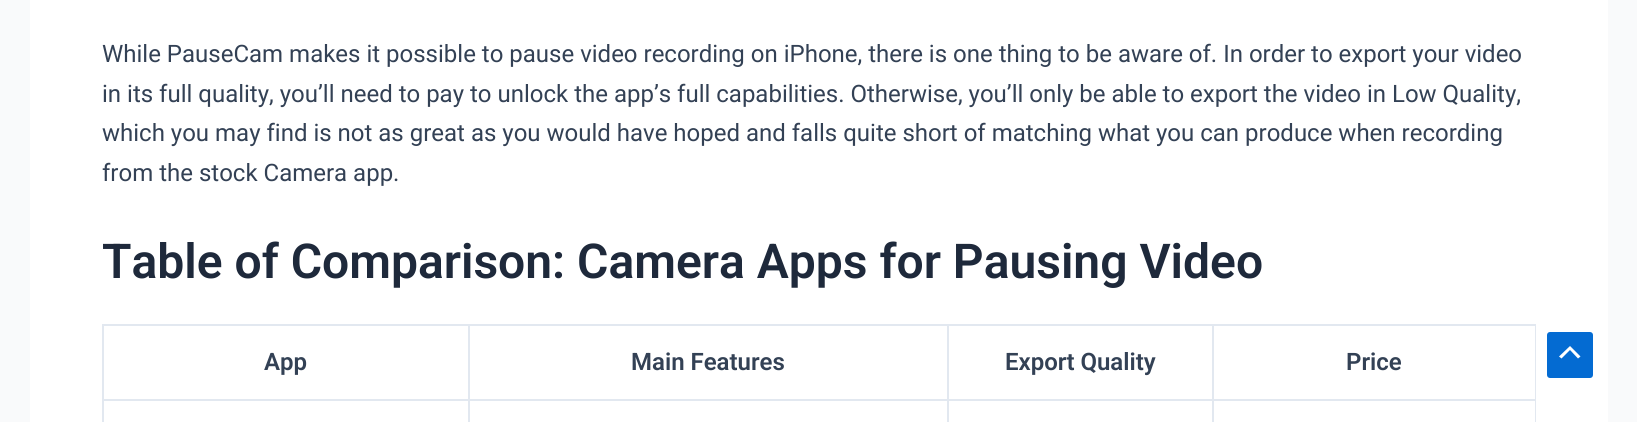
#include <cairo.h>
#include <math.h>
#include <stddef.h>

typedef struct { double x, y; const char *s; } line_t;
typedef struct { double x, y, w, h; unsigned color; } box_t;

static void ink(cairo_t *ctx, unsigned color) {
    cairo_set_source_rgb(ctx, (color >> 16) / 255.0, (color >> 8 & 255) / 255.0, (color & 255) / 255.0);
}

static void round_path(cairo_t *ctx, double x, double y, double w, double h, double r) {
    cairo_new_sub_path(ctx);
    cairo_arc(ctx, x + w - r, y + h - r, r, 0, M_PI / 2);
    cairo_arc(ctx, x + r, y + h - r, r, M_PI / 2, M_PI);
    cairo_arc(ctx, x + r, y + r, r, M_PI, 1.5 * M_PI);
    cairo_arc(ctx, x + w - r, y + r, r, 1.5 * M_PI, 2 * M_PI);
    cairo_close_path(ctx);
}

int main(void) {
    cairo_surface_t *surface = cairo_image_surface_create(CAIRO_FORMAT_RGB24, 1637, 422);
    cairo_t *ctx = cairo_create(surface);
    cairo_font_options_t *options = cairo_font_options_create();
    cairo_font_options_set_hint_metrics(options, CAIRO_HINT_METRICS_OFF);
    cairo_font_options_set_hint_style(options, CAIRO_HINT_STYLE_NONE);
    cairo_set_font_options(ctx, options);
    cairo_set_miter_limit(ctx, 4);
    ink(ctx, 0xF9FAFB);
    cairo_paint(ctx);
    ink(ctx, 0xFFFFFF);
    cairo_rectangle(ctx, 30, 0, 1578, 422);
    cairo_fill(ctx);
    cairo_select_font_face(ctx, "Roboto", CAIRO_FONT_SLANT_NORMAL, CAIRO_FONT_WEIGHT_NORMAL);
    cairo_set_font_size(ctx, 24);
    ink(ctx, 0x334155);
    {
        static const line_t items[] = {
            {102, 62, "While PauseCam makes it possible to pause video recording on iPhone, there is one thing to be aware of. In order to export your video"},
            {102, 102, "in its full quality, you’ll need to pay to unlock the app’s full capabilities. Otherwise, you’ll only be able to export the video in Low Quality,"},
            {102, 141, "which you may find is not as great as you would have hoped and falls quite short of matching what you can produce when recording"},
            {102, 181, "from the stock Camera app."},
        };
        for (size_t i = 0; i < sizeof items / sizeof *items; i++) {
            cairo_move_to(ctx, items[i].x, items[i].y);
            cairo_show_text(ctx, items[i].s);
        }
    }
    cairo_select_font_face(ctx, "Roboto SemiBold", CAIRO_FONT_SLANT_NORMAL, CAIRO_FONT_WEIGHT_NORMAL);
    cairo_set_font_size(ctx, 48);
    ink(ctx, 0x1E293B);
    cairo_move_to(ctx, 102, 278);
    cairo_show_text(ctx, "Table of Comparison: Camera Apps for Pausing Video");
    {
        static const box_t items[] = {
            {102, 324, 1434, 2, 0xE2E8F0},
            {102, 324, 2, 98, 0xE2E8F0},
            {468, 399, 2, 23, 0xE2E8F0},
            {947, 399, 2, 23, 0xE2E8F0},
            {1212, 399, 2, 23, 0xE2E8F0},
            {1535, 324, 1, 98, 0xE2E8F0},
            {1212, 399, 324, 2, 0xE2E8F0},
            {1212, 324, 2, 77, 0xE2E8F0},
            {947, 399, 267, 2, 0xE2E8F0},
            {947, 324, 2, 77, 0xE2E8F0},
            {468, 399, 480, 2, 0xE2E8F0},
            {468, 324, 2, 77, 0xE2E8F0},
            {102, 399, 368, 2, 0xE2E8F0},
        };
        for (size_t i = 0; i < sizeof items / sizeof *items; i++) {
            ink(ctx, items[i].color);
            cairo_rectangle(ctx, items[i].x, items[i].y, items[i].w, items[i].h);
            cairo_fill(ctx);
        }
    }
    cairo_set_font_size(ctx, 24);
    ink(ctx, 0x334155);
    {
        static const line_t items[] = {
            {264, 370, "App"},
            {631, 370, "Main Features"},
            {1005, 370, "Export Quality"},
            {1346, 370, "Price"},
        };
        for (size_t i = 0; i < sizeof items / sizeof *items; i++) {
            cairo_move_to(ctx, items[i].x, items[i].y);
            cairo_show_text(ctx, items[i].s);
        }
    }
    ink(ctx, 0x046BD2);
    round_path(ctx, 1547, 332, 46, 46, 3);
    cairo_fill(ctx);
    ink(ctx, 0xFFFFFF);
    cairo_new_path(ctx);
    cairo_move_to(ctx, 1580.5, 356.5);
    cairo_line_to(ctx, 1570, 346);
    cairo_line_to(ctx, 1559, 356.5);
    cairo_line_to(ctx, 1561.5, 358.5);
    cairo_line_to(ctx, 1570, 350);
    cairo_line_to(ctx, 1578, 358.5);
    cairo_close_path(ctx);
    cairo_fill(ctx);
    cairo_surface_write_to_png(surface, "image.png");
    cairo_font_options_destroy(options);
    cairo_destroy(ctx);
    cairo_surface_destroy(surface);
    return 0;
}
